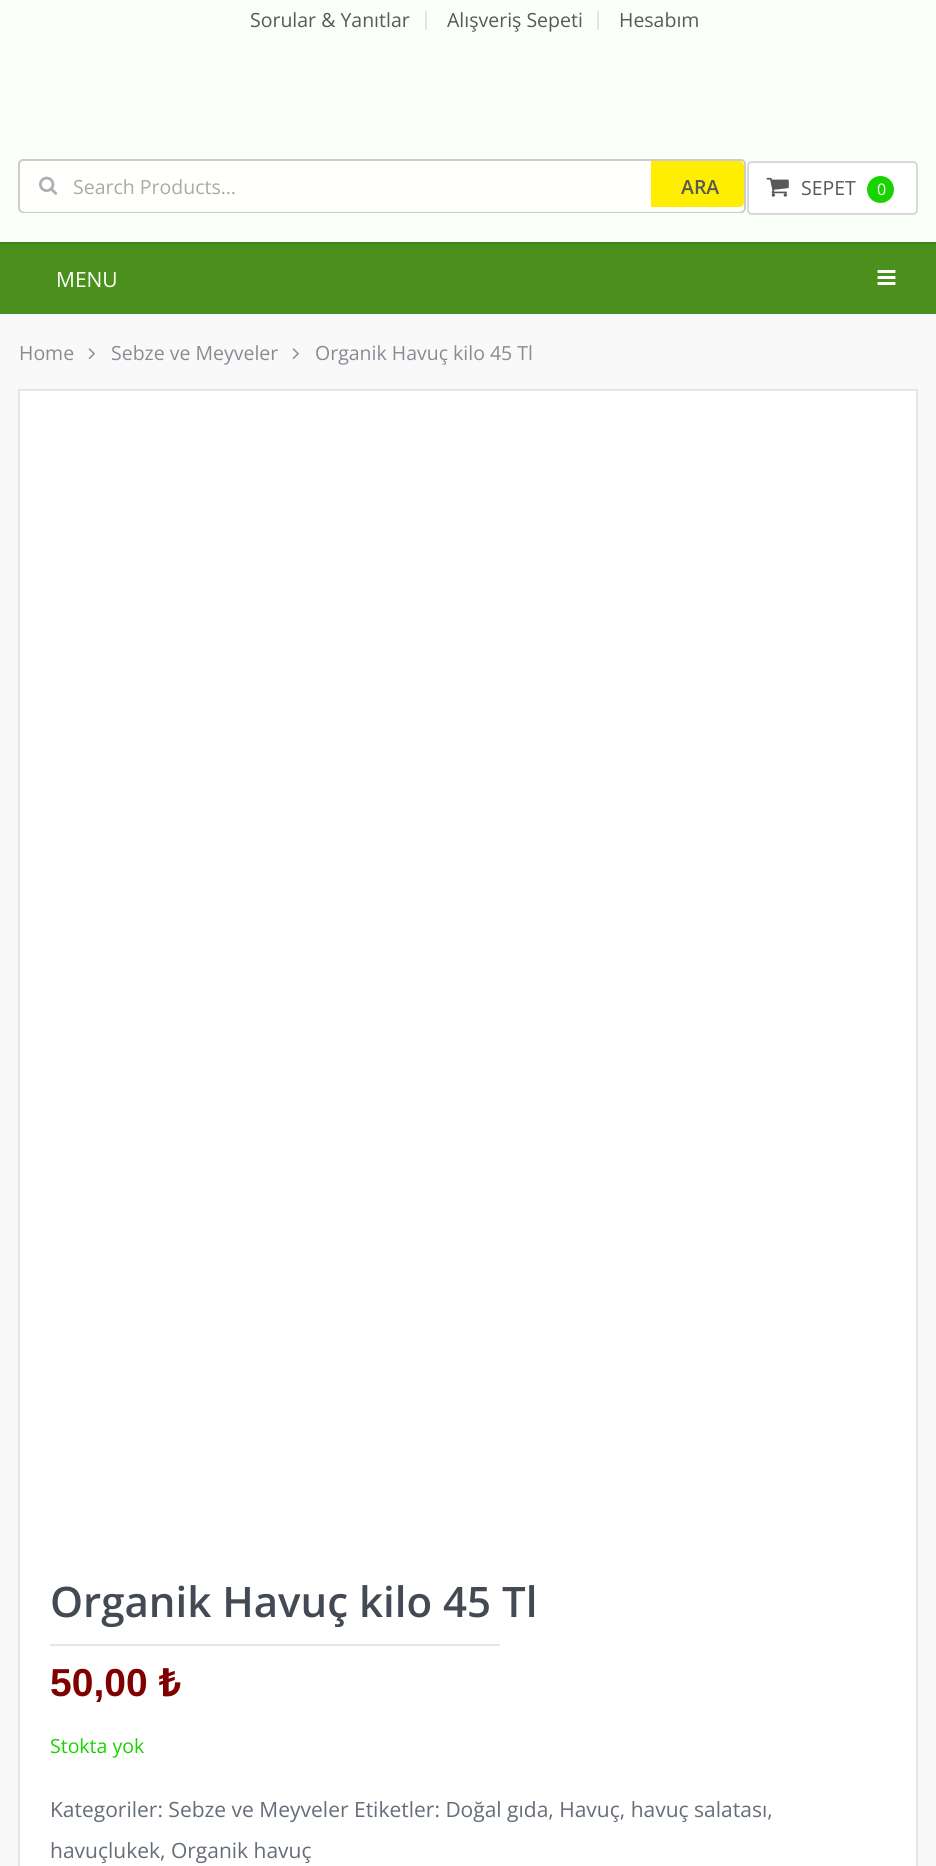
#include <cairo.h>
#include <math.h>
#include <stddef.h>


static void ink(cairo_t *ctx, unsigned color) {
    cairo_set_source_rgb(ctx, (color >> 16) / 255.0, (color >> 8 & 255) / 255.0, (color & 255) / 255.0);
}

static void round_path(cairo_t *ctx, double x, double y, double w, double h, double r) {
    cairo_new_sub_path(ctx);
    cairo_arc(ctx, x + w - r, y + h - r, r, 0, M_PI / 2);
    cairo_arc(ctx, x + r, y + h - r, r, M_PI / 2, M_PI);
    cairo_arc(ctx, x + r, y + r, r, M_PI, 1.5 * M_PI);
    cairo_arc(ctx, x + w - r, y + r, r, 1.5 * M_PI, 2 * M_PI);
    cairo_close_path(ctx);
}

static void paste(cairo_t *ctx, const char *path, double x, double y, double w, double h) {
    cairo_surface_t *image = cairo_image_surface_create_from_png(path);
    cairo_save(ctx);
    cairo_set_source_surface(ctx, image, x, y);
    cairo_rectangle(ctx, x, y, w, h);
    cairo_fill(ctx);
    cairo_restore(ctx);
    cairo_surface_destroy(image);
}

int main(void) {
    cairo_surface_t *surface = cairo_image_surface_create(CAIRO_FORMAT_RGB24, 936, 1866);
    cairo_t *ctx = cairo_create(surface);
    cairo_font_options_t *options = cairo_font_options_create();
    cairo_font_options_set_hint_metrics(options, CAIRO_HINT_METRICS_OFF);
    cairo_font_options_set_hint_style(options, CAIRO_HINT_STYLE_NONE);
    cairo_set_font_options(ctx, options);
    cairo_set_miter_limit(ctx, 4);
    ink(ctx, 0xF9F9F9);
    cairo_paint(ctx);
    ink(ctx, 0xFBFFF9);
    cairo_rectangle(ctx, 0, 0, 936, 242);
    cairo_fill(ctx);
    ink(ctx, 0xE2E6E0);
    cairo_rectangle(ctx, 425, 11, 2, 19);
    cairo_fill(ctx);
    cairo_select_font_face(ctx, "Open Sans", CAIRO_FONT_SLANT_NORMAL, CAIRO_FONT_WEIGHT_NORMAL);
    cairo_set_font_size(ctx, 19.5);
    ink(ctx, 0x585858);
    cairo_move_to(ctx, 250, 27);
    cairo_show_text(ctx, "Sorular & Yanıtlar");
    ink(ctx, 0xE2E6E0);
    cairo_rectangle(ctx, 597, 11, 2, 19);
    cairo_fill(ctx);
    ink(ctx, 0x585858);
    cairo_move_to(ctx, 447, 27);
    cairo_show_text(ctx, "Alışveriş Sepeti");
    cairo_move_to(ctx, 619, 27);
    cairo_show_text(ctx, "Hesabım");
    round_path(ctx, 19, 160, 726, 52, 4);
    ink(ctx, 0xCCCCCC);
    cairo_stroke(ctx);
    cairo_set_source_rgba(ctx, 1, 1, 1, 0.9);
    round_path(ctx, 20, 161, 724, 51, 5);
    cairo_fill(ctx);
    paste(ctx, "media/1.png", 39, 176, 19, 19);
    ink(ctx, 0xABA9A8);
    cairo_move_to(ctx, 73, 194);
    cairo_show_text(ctx, "Search Products…");
    ink(ctx, 0xFFEE00);
    cairo_new_path(ctx);
    cairo_move_to(ctx, 651, 161);
    cairo_line_to(ctx, 739, 161);
    cairo_curve_to(ctx, 742, 161, 744, 163, 744, 166);
    cairo_line_to(ctx, 744, 202);
    cairo_curve_to(ctx, 744, 205, 742, 207, 739, 207);
    cairo_line_to(ctx, 651, 207);
    cairo_close_path(ctx);
    cairo_fill(ctx);
    cairo_select_font_face(ctx, "Open Sans SemiBold", CAIRO_FONT_SLANT_NORMAL, CAIRO_FONT_WEIGHT_NORMAL);
    ink(ctx, 0x585858);
    cairo_move_to(ctx, 681, 194);
    cairo_show_text(ctx, "ARA");
    ink(ctx, 0xFFFFFF);
    round_path(ctx, 747, 161, 171, 54, 5);
    cairo_fill(ctx);
    round_path(ctx, 748, 162, 169, 52, 4);
    cairo_set_source_rgba(ctx, 0, 0, 0, 0.15);
    cairo_stroke(ctx);
    paste(ctx, "media/2.png", 766, 177, 23, 20);
    cairo_select_font_face(ctx, "Open Sans", CAIRO_FONT_SLANT_NORMAL, CAIRO_FONT_WEIGHT_NORMAL);
    ink(ctx, 0x585858);
    cairo_move_to(ctx, 801, 195);
    cairo_show_text(ctx, "SEPET");
    ink(ctx, 0x18D300);
    cairo_new_path(ctx);
    cairo_arc(ctx, 880.5, 189.5, 13.5, 0, 2 * M_PI);
    cairo_fill(ctx);
    cairo_set_font_size(ctx, 16);
    ink(ctx, 0xFFFFFF);
    cairo_move_to(ctx, 877, 195);
    cairo_show_text(ctx, "0");
    ink(ctx, 0x4B901D);
    cairo_rectangle(ctx, 0, 244, 936, 70);
    cairo_fill(ctx);
    ink(ctx, 0x44821A);
    cairo_rectangle(ctx, 0, 242, 936, 2);
    cairo_fill(ctx);
    cairo_set_font_size(ctx, 21);
    ink(ctx, 0xFFFFFF);
    cairo_move_to(ctx, 56, 287);
    cairo_show_text(ctx, "MENU");
    paste(ctx, "media/3.png", 877, 270, 19, 15);
    cairo_set_font_size(ctx, 19.5);
    ink(ctx, 0x878C94);
    cairo_move_to(ctx, 19, 360);
    cairo_show_text(ctx, "Home");
    paste(ctx, "media/4.png", 88, 348, 7, 12);
    cairo_move_to(ctx, 111, 360);
    cairo_show_text(ctx, "Sebze ve Meyveler");
    paste(ctx, "media/4.png", 292, 348, 7, 12);
    cairo_move_to(ctx, 315, 360);
    cairo_show_text(ctx, "Organik Havuç kilo 45 Tl");
    ink(ctx, 0xFFFFFF);
    cairo_rectangle(ctx, 19, 390, 898, 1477);
    cairo_fill_preserve(ctx);
    ink(ctx, 0xE6E6E6);
    cairo_stroke(ctx);
    cairo_select_font_face(ctx, "Open Sans SemiBold", CAIRO_FONT_SLANT_NORMAL, CAIRO_FONT_WEIGHT_NORMAL);
    cairo_set_font_size(ctx, 42);
    ink(ctx, 0x434A54);
    cairo_move_to(ctx, 50, 1617);
    cairo_show_text(ctx, "Organik Havuç kilo 45 Tl");
    ink(ctx, 0xE6E6E6);
    cairo_rectangle(ctx, 50, 1644, 450, 2);
    cairo_fill(ctx);
    cairo_select_font_face(ctx, "Liberation Sans", CAIRO_FONT_SLANT_NORMAL, CAIRO_FONT_WEIGHT_BOLD);
    cairo_set_font_size(ctx, 39);
    ink(ctx, 0x800000);
    cairo_move_to(ctx, 50, 1696);
    cairo_show_text(ctx, "50,00");
    cairo_select_font_face(ctx, "Noto Sans", CAIRO_FONT_SLANT_NORMAL, CAIRO_FONT_WEIGHT_BOLD);
    cairo_move_to(ctx, 159, 1696);
    cairo_show_text(ctx, "₺");
    cairo_select_font_face(ctx, "Open Sans", CAIRO_FONT_SLANT_NORMAL, CAIRO_FONT_WEIGHT_NORMAL);
    cairo_set_font_size(ctx, 19.5);
    ink(ctx, 0x18D300);
    cairo_move_to(ctx, 50, 1753);
    cairo_show_text(ctx, "Stokta yok");
    cairo_set_font_size(ctx, 21);
    ink(ctx, 0x656D78);
    cairo_move_to(ctx, 50, 1817);
    cairo_show_text(ctx, "Kategoriler: Sebze ve Meyveler Etiketler: Doğal gıda, Havuç, havuç salatası,");
    cairo_move_to(ctx, 50, 1858);
    cairo_show_text(ctx, "havuçlukek, Organik havuç");
    cairo_surface_write_to_png(surface, "image.png");
    cairo_font_options_destroy(options);
    cairo_destroy(ctx);
    cairo_surface_destroy(surface);
    return 0;
}
